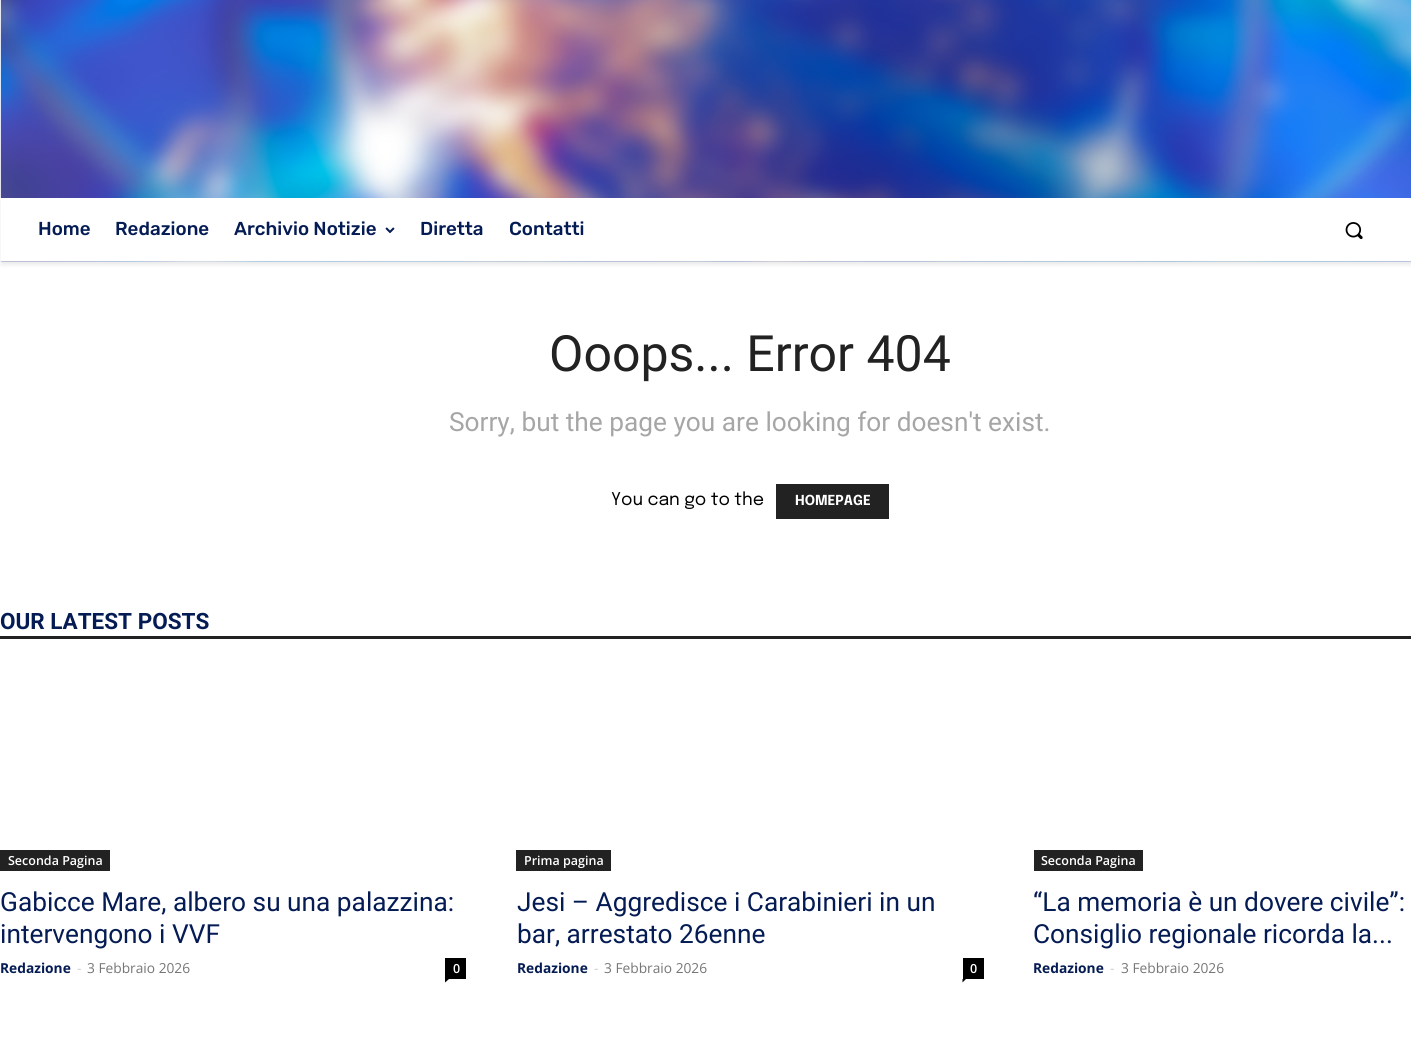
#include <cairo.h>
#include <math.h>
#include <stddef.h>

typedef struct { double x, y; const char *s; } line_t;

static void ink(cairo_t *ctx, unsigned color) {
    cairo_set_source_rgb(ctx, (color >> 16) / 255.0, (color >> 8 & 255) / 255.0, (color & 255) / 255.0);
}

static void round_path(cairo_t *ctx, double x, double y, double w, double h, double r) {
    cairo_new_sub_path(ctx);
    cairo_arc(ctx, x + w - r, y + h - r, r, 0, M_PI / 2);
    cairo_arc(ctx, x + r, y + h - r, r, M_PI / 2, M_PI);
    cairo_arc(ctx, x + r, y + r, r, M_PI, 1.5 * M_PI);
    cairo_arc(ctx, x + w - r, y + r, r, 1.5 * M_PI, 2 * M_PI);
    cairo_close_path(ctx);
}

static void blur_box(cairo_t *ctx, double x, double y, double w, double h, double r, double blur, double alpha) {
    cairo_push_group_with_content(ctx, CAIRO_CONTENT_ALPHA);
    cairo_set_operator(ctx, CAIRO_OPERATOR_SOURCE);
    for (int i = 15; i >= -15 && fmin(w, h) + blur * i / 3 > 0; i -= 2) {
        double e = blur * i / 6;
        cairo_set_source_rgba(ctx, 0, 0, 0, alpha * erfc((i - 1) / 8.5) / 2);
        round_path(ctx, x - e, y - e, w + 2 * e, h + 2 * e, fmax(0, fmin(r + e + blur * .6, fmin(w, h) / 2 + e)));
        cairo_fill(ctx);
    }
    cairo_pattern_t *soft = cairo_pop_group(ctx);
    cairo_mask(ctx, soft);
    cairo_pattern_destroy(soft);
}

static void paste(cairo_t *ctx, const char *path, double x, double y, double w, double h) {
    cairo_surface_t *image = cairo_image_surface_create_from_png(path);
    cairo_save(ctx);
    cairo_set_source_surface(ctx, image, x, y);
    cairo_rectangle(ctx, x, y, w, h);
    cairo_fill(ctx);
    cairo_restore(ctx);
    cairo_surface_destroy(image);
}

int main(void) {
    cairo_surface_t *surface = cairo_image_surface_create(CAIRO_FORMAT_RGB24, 1411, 1054);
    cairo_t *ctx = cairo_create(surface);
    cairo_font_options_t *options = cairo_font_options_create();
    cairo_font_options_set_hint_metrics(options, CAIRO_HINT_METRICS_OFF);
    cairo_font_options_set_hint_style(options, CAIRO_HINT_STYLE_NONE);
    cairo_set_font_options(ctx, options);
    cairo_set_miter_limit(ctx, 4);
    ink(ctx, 0xFFFFFF);
    cairo_paint(ctx);
    paste(ctx, "media/1.png", 0, 0, 1411, 262);
    ink(ctx, 0xFFFFFF);
    cairo_rectangle(ctx, 0, 198, 1411, 63);
    cairo_fill(ctx);
    cairo_save(ctx);
    cairo_set_fill_rule(ctx, CAIRO_FILL_RULE_EVEN_ODD);
    cairo_new_path(ctx);
    cairo_move_to(ctx, 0, 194);
    cairo_line_to(ctx, 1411, 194);
    cairo_line_to(ctx, 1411, 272);
    cairo_line_to(ctx, 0, 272);
    cairo_close_path(ctx);
    cairo_move_to(ctx, 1, 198);
    cairo_line_to(ctx, 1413, 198);
    cairo_line_to(ctx, 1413, 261);
    cairo_line_to(ctx, 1, 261);
    cairo_close_path(ctx);
    cairo_clip(ctx);
    ink(ctx, 0x000000);
    blur_box(ctx, 1, 201, 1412, 64, 0, 2, 0.08);
    cairo_restore(ctx);
    cairo_select_font_face(ctx, "Rubik Medium", CAIRO_FONT_SLANT_NORMAL, CAIRO_FONT_WEIGHT_NORMAL);
    cairo_set_font_size(ctx, 18.75);
    ink(ctx, 0x041B53);
    {
        static const line_t items[] = {
            {38, 235, "Home"},
            {115, 235, "Redazione"},
            {234, 235, "Archivio Notizie"},
        };
        for (size_t i = 0; i < sizeof items / sizeof *items; i++) {
            cairo_move_to(ctx, items[i].x, items[i].y);
            cairo_show_text(ctx, items[i].s);
        }
    }
    paste(ctx, "media/2.png", 385, 227, 10, 7);
    cairo_move_to(ctx, 420, 235);
    cairo_show_text(ctx, "Diretta");
    cairo_move_to(ctx, 509, 235);
    cairo_show_text(ctx, "Contatti");
    paste(ctx, "media/3.png", 1345, 222, 18, 18);
    cairo_select_font_face(ctx, "Roboto", CAIRO_FONT_SLANT_NORMAL, CAIRO_FONT_WEIGHT_NORMAL);
    cairo_set_font_size(ctx, 50);
    ink(ctx, 0x222222);
    cairo_move_to(ctx, 549, 371);
    cairo_show_text(ctx, "Ooops... Error 404");
    cairo_set_font_size(ctx, 26.25);
    ink(ctx, 0xA6A6A6);
    cairo_move_to(ctx, 449, 431);
    cairo_show_text(ctx, "Sorry, but the page you are looking for doesn't exist.");
    cairo_select_font_face(ctx, "Epilogue", CAIRO_FONT_SLANT_NORMAL, CAIRO_FONT_WEIGHT_NORMAL);
    cairo_set_font_size(ctx, 17.5);
    ink(ctx, 0x000000);
    cairo_move_to(ctx, 611, 505);
    cairo_show_text(ctx, "You can go to the");
    ink(ctx, 0x222222);
    cairo_rectangle(ctx, 776, 484, 113, 35);
    cairo_fill(ctx);
    cairo_select_font_face(ctx, "Epilogue", CAIRO_FONT_SLANT_NORMAL, CAIRO_FONT_WEIGHT_BOLD);
    cairo_set_font_size(ctx, 13.75);
    ink(ctx, 0xFFFFFF);
    cairo_move_to(ctx, 795, 505);
    cairo_show_text(ctx, "HOMEPAGE");
    ink(ctx, 0x222222);
    cairo_rectangle(ctx, 0, 636, 1411, 3);
    cairo_fill(ctx);
    cairo_select_font_face(ctx, "Roboto", CAIRO_FONT_SLANT_NORMAL, CAIRO_FONT_WEIGHT_BOLD);
    cairo_set_font_size(ctx, 22.5);
    ink(ctx, 0x041B53);
    cairo_move_to(ctx, 0, 629);
    cairo_show_text(ctx, "OUR LATEST POSTS");
    ink(ctx, 0x222222);
    cairo_rectangle(ctx, 0, 850, 110, 21);
    cairo_fill(ctx);
    cairo_select_font_face(ctx, "Open Sans SemiBold", CAIRO_FONT_SLANT_NORMAL, CAIRO_FONT_WEIGHT_NORMAL);
    cairo_set_font_size(ctx, 12.5);
    ink(ctx, 0xFFFFFF);
    cairo_move_to(ctx, 8, 865);
    cairo_show_text(ctx, "Seconda Pagina");
    cairo_select_font_face(ctx, "Roboto", CAIRO_FONT_SLANT_NORMAL, CAIRO_FONT_WEIGHT_NORMAL);
    cairo_set_font_size(ctx, 26.25);
    ink(ctx, 0x041B53);
    cairo_move_to(ctx, 0, 911);
    cairo_show_text(ctx, "Gabicce Mare, albero su una palazzina:");
    cairo_move_to(ctx, 0, 943);
    cairo_show_text(ctx, "intervengono i VVF");
    cairo_select_font_face(ctx, "Open Sans", CAIRO_FONT_SLANT_NORMAL, CAIRO_FONT_WEIGHT_BOLD);
    cairo_set_font_size(ctx, 13.75);
    cairo_move_to(ctx, 0, 973);
    cairo_show_text(ctx, "Redazione");
    cairo_select_font_face(ctx, "Open Sans", CAIRO_FONT_SLANT_NORMAL, CAIRO_FONT_WEIGHT_NORMAL);
    ink(ctx, 0xCCCCCC);
    cairo_move_to(ctx, 77, 973);
    cairo_show_text(ctx, "-");
    ink(ctx, 0x767676);
    cairo_move_to(ctx, 87, 973);
    cairo_show_text(ctx, "3 Febbraio 2026");
    ink(ctx, 0x000000);
    cairo_rectangle(ctx, 445, 958, 21, 21);
    cairo_fill(ctx);
    cairo_select_font_face(ctx, "Open Sans SemiBold", CAIRO_FONT_SLANT_NORMAL, CAIRO_FONT_WEIGHT_NORMAL);
    cairo_set_font_size(ctx, 12.5);
    ink(ctx, 0xFFFFFF);
    cairo_move_to(ctx, 453, 973);
    cairo_show_text(ctx, "0");
    ink(ctx, 0x000000);
    cairo_new_path(ctx);
    cairo_move_to(ctx, 445, 979);
    cairo_line_to(ctx, 449, 979);
    cairo_line_to(ctx, 445, 982.5);
    cairo_close_path(ctx);
    cairo_fill(ctx);
    ink(ctx, 0x222222);
    cairo_rectangle(ctx, 516, 850, 95, 21);
    cairo_fill(ctx);
    ink(ctx, 0xFFFFFF);
    cairo_move_to(ctx, 524, 865);
    cairo_show_text(ctx, "Prima pagina");
    cairo_select_font_face(ctx, "Roboto", CAIRO_FONT_SLANT_NORMAL, CAIRO_FONT_WEIGHT_NORMAL);
    cairo_set_font_size(ctx, 26.25);
    ink(ctx, 0x041B53);
    cairo_move_to(ctx, 517, 911);
    cairo_show_text(ctx, "Jesi – Aggredisce i Carabinieri in un");
    cairo_move_to(ctx, 517, 943);
    cairo_show_text(ctx, "bar, arrestato 26enne");
    cairo_select_font_face(ctx, "Open Sans", CAIRO_FONT_SLANT_NORMAL, CAIRO_FONT_WEIGHT_BOLD);
    cairo_set_font_size(ctx, 13.75);
    cairo_move_to(ctx, 517, 973);
    cairo_show_text(ctx, "Redazione");
    cairo_select_font_face(ctx, "Open Sans", CAIRO_FONT_SLANT_NORMAL, CAIRO_FONT_WEIGHT_NORMAL);
    ink(ctx, 0xCCCCCC);
    cairo_move_to(ctx, 594, 973);
    cairo_show_text(ctx, "-");
    ink(ctx, 0x767676);
    cairo_move_to(ctx, 604, 973);
    cairo_show_text(ctx, "3 Febbraio 2026");
    ink(ctx, 0x000000);
    cairo_rectangle(ctx, 963, 958, 21, 21);
    cairo_fill(ctx);
    cairo_select_font_face(ctx, "Open Sans SemiBold", CAIRO_FONT_SLANT_NORMAL, CAIRO_FONT_WEIGHT_NORMAL);
    cairo_set_font_size(ctx, 12.5);
    ink(ctx, 0xFFFFFF);
    cairo_move_to(ctx, 970, 973);
    cairo_show_text(ctx, "0");
    ink(ctx, 0x000000);
    cairo_new_path(ctx);
    cairo_move_to(ctx, 962.5, 979);
    cairo_line_to(ctx, 966, 979);
    cairo_line_to(ctx, 962.5, 982.5);
    cairo_close_path(ctx);
    cairo_fill(ctx);
    ink(ctx, 0x222222);
    cairo_rectangle(ctx, 1034, 850, 109, 21);
    cairo_fill(ctx);
    ink(ctx, 0xFFFFFF);
    cairo_move_to(ctx, 1041, 865);
    cairo_show_text(ctx, "Seconda Pagina");
    cairo_select_font_face(ctx, "Roboto", CAIRO_FONT_SLANT_NORMAL, CAIRO_FONT_WEIGHT_NORMAL);
    cairo_set_font_size(ctx, 26.25);
    ink(ctx, 0x041B53);
    cairo_move_to(ctx, 1033, 911);
    cairo_show_text(ctx, "“La memoria è un dovere civile”:");
    cairo_move_to(ctx, 1033, 943);
    cairo_show_text(ctx, "Consiglio regionale ricorda la...");
    cairo_select_font_face(ctx, "Open Sans", CAIRO_FONT_SLANT_NORMAL, CAIRO_FONT_WEIGHT_BOLD);
    cairo_set_font_size(ctx, 13.75);
    cairo_move_to(ctx, 1033, 973);
    cairo_show_text(ctx, "Redazione");
    cairo_select_font_face(ctx, "Open Sans", CAIRO_FONT_SLANT_NORMAL, CAIRO_FONT_WEIGHT_NORMAL);
    ink(ctx, 0xCCCCCC);
    cairo_move_to(ctx, 1110, 973);
    cairo_show_text(ctx, "-");
    ink(ctx, 0x767676);
    cairo_move_to(ctx, 1121, 973);
    cairo_show_text(ctx, "3 Febbraio 2026");
    cairo_surface_write_to_png(surface, "image.png");
    cairo_font_options_destroy(options);
    cairo_destroy(ctx);
    cairo_surface_destroy(surface);
    return 0;
}
